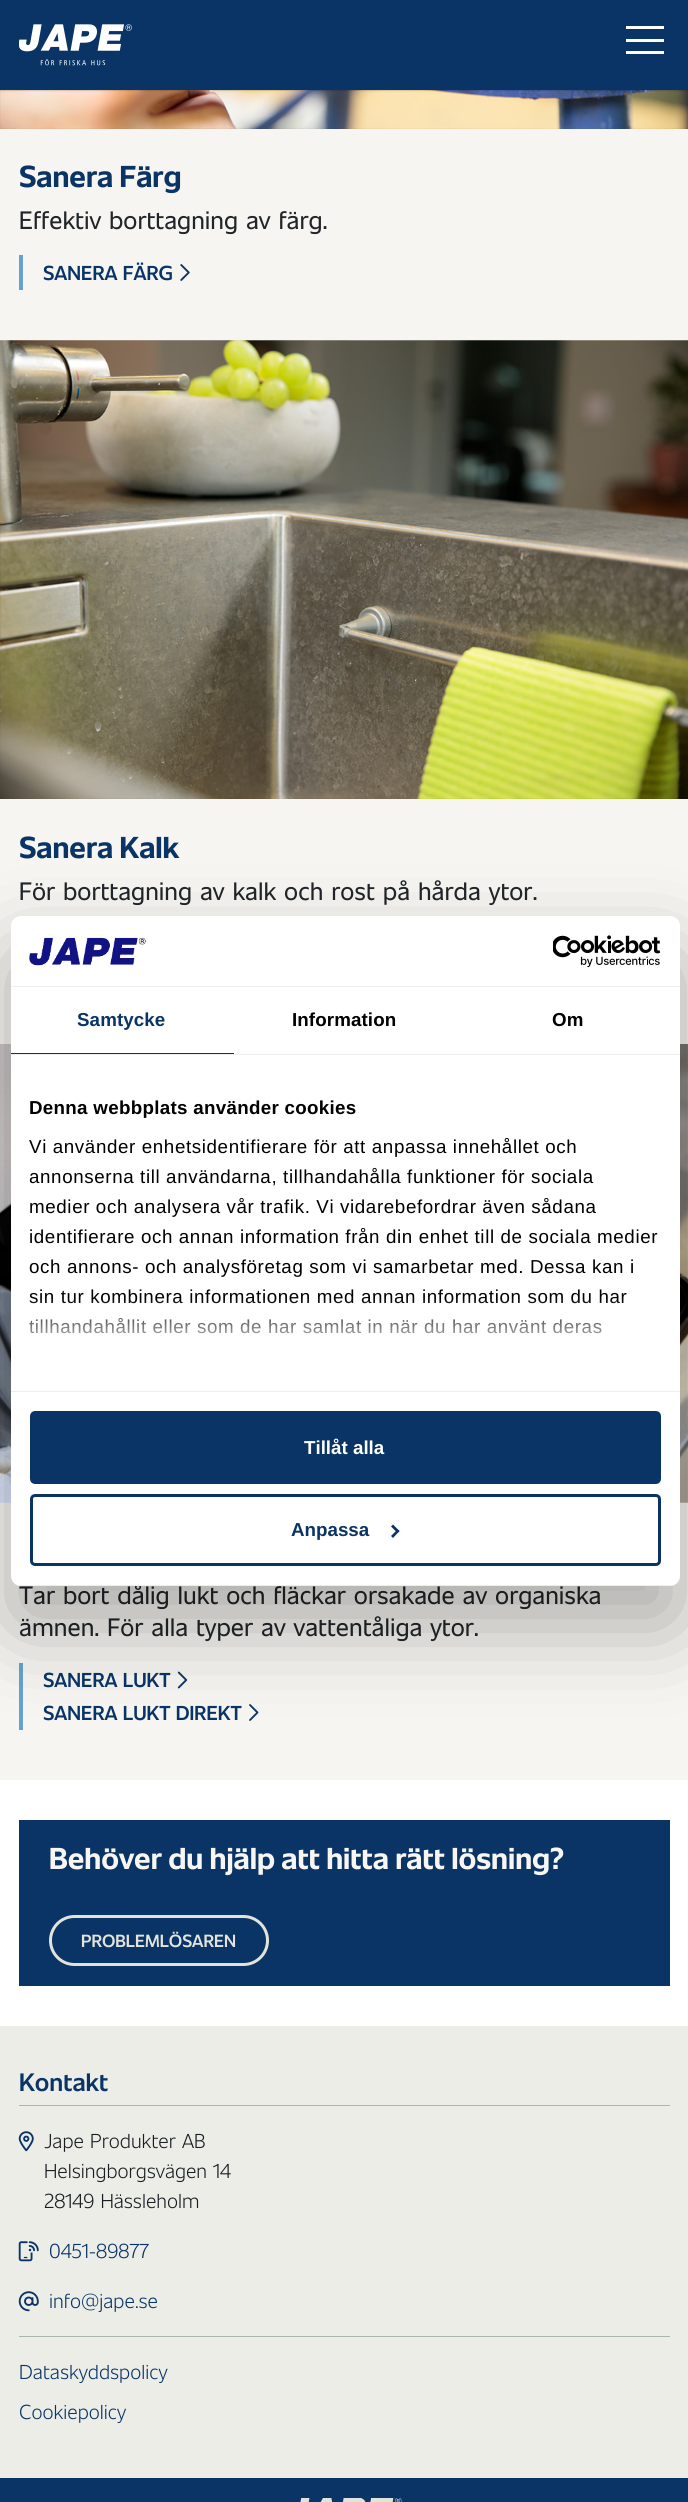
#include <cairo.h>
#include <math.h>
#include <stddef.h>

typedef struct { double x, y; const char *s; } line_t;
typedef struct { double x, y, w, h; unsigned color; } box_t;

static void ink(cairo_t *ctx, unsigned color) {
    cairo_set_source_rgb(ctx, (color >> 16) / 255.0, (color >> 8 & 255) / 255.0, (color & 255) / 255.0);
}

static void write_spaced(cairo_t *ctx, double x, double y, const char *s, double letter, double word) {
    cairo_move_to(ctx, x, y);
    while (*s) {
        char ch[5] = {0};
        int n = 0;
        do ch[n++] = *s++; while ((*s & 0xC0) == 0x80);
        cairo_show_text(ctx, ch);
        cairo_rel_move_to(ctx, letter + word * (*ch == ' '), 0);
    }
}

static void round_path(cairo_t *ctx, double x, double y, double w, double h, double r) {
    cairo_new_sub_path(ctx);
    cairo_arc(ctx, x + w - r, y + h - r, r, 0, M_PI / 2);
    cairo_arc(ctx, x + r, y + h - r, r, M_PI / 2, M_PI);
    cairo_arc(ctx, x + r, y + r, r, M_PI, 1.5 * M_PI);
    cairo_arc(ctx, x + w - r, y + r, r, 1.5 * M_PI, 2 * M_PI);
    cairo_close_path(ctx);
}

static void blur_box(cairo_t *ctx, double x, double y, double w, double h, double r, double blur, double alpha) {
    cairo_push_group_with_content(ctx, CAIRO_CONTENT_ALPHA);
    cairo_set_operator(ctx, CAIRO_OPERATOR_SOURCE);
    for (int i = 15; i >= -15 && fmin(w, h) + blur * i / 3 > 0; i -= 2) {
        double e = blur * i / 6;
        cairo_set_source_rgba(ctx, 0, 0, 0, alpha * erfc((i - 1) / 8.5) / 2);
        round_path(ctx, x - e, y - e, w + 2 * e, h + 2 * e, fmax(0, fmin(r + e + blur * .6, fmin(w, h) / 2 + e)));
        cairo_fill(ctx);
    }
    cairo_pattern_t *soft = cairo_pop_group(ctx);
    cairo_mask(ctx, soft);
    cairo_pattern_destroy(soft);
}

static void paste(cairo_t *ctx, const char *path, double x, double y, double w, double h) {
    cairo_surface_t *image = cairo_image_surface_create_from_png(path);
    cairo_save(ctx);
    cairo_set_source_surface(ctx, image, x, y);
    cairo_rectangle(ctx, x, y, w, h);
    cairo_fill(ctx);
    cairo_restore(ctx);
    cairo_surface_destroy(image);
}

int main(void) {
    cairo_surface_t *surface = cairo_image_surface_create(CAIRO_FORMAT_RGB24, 688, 2502);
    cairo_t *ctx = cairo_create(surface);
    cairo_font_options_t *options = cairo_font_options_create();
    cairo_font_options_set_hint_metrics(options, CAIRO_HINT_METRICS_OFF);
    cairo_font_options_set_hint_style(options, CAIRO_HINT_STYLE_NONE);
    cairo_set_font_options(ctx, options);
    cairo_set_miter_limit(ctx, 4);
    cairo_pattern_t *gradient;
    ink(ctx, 0xFFFFFF);
    cairo_paint(ctx);
    paste(ctx, "media/2.png", 0, 90, 688, 39);
    ink(ctx, 0x000000);
    blur_box(ctx, 0, 0, 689, 90, 0, 1, 0.4);
    ink(ctx, 0x093465);
    cairo_rectangle(ctx, 0, 0, 688, 90);
    cairo_fill(ctx);
    paste(ctx, "media/1.png", 19, 24, 113, 42);
    {
        static const box_t items[] = {
            {626, 26, 38, 3, 0xFFFFFF},
            {626, 39, 38, 3, 0xFFFFFF},
            {626, 51, 38, 3, 0xFFFFFF},
            {0, 129, 688, 915, 0xF6F5F1},
        };
        for (size_t i = 0; i < sizeof items / sizeof *items; i++) {
            ink(ctx, items[i].color);
            cairo_rectangle(ctx, items[i].x, items[i].y, items[i].w, items[i].h);
            cairo_fill(ctx);
        }
    }
    cairo_select_font_face(ctx, "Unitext", CAIRO_FONT_SLANT_NORMAL, CAIRO_FONT_WEIGHT_BOLD);
    cairo_set_font_size(ctx, 30);
    ink(ctx, 0x093465);
    cairo_move_to(ctx, 19, 187);
    cairo_show_text(ctx, "Sanera Färg");
    cairo_select_font_face(ctx, "Unitext", CAIRO_FONT_SLANT_NORMAL, CAIRO_FONT_WEIGHT_NORMAL);
    cairo_set_font_size(ctx, 25);
    ink(ctx, 0x212529);
    cairo_move_to(ctx, 19, 229);
    cairo_show_text(ctx, "Effektiv borttagning av färg.");
    ink(ctx, 0x67A2CC);
    cairo_rectangle(ctx, 19, 255, 4, 35);
    cairo_fill(ctx);
    cairo_select_font_face(ctx, "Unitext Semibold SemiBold", CAIRO_FONT_SLANT_NORMAL, CAIRO_FONT_WEIGHT_NORMAL);
    cairo_set_font_size(ctx, 20);
    ink(ctx, 0x093465);
    cairo_move_to(ctx, 43, 280);
    cairo_show_text(ctx, "SANERA FÄRG");
    paste(ctx, "media/3.png", 180, 264, 10, 17);
    paste(ctx, "media/4.png", 0, 340, 688, 459);
    cairo_select_font_face(ctx, "Unitext", CAIRO_FONT_SLANT_NORMAL, CAIRO_FONT_WEIGHT_BOLD);
    cairo_set_font_size(ctx, 30);
    cairo_move_to(ctx, 19, 858);
    cairo_show_text(ctx, "Sanera Kalk");
    cairo_select_font_face(ctx, "Unitext", CAIRO_FONT_SLANT_NORMAL, CAIRO_FONT_WEIGHT_NORMAL);
    cairo_set_font_size(ctx, 25);
    ink(ctx, 0x212529);
    cairo_move_to(ctx, 19, 900);
    cairo_show_text(ctx, "För borttagning av kalk och rost på hårda ytor.");
    ink(ctx, 0xF6F5F1);
    cairo_rectangle(ctx, 0, 1502, 688, 278);
    cairo_fill(ctx);
    paste(ctx, "media/5.png", 0, 1044, 688, 459);
    ink(ctx, 0x212529);
    cairo_move_to(ctx, 19, 1604);
    cairo_show_text(ctx, "Tar bort dålig lukt och fläckar orsakade av organiska");
    cairo_move_to(ctx, 19, 1636);
    cairo_show_text(ctx, "ämnen. För alla typer av vattentåliga ytor.");
    ink(ctx, 0x67A2CC);
    cairo_rectangle(ctx, 19, 1663, 4, 67);
    cairo_fill(ctx);
    cairo_select_font_face(ctx, "Unitext Semibold SemiBold", CAIRO_FONT_SLANT_NORMAL, CAIRO_FONT_WEIGHT_NORMAL);
    cairo_set_font_size(ctx, 20);
    ink(ctx, 0x093465);
    cairo_move_to(ctx, 43, 1687);
    cairo_show_text(ctx, "SANERA LUKT");
    paste(ctx, "media/6.png", 177, 1671, 11, 18);
    cairo_move_to(ctx, 43, 1720);
    cairo_show_text(ctx, "SANERA LUKT DIREKT");
    paste(ctx, "media/7.png", 249, 1704, 10, 17);
    ink(ctx, 0x000000);
    blur_box(ctx, 11, 956, 669, 670, 10, 42.5, 0.3);
    ink(ctx, 0xFFFFFF);
    round_path(ctx, 11, 916, 669, 670, 10);
    cairo_fill(ctx);
    ink(ctx, 0xEEEEEE);
    cairo_rectangle(ctx, 11, 986, 669, 1);
    cairo_fill(ctx);
    paste(ctx, "media/8.png", 29, 937, 117, 29);
    paste(ctx, "media/9.png", 553, 935, 108, 33);
    cairo_rectangle(ctx, 11, 1054, 669, 1);
    cairo_fill(ctx);
    ink(ctx, 0x093465);
    cairo_rectangle(ctx, 11, 1053, 223, 1);
    cairo_fill(ctx);
    cairo_select_font_face(ctx, "Liberation Sans", CAIRO_FONT_SLANT_NORMAL, CAIRO_FONT_WEIGHT_BOLD);
    cairo_set_font_size(ctx, 18.75);
    write_spaced(ctx, 77, 1026, "Samtycke", 0.1, 0);
    ink(ctx, 0x000000);
    write_spaced(ctx, 292, 1026, "Information", 0.1, 0);
    write_spaced(ctx, 552, 1026, "Om", 0.1, 0);
    ink(ctx, 0xEEEEEE);
    cairo_rectangle(ctx, 11, 1391, 669, 1);
    cairo_fill(ctx);
    ink(ctx, 0x000000);
    write_spaced(ctx, 29, 1114, "Denna webbplats använder cookies", 0.3, 0);
    cairo_select_font_face(ctx, "Liberation Sans", CAIRO_FONT_SLANT_NORMAL, CAIRO_FONT_WEIGHT_NORMAL);
    {
        static const line_t items[] = {
            {29, 1153, "Vi använder enhetsidentifierare för att anpassa innehållet och"},
            {29, 1183, "annonserna till användarna, tillhandahålla funktioner för sociala"},
            {29, 1213, "medier och analysera vår trafik. Vi vidarebefordrar även sådana"},
            {29, 1243, "identifierare och annan information från din enhet till de sociala medier"},
            {29, 1273, "och annons- och analysföretag som vi samarbetar med. Dessa kan i"},
            {29, 1303, "sin tur kombinera informationen med annan information som du har"},
            {29, 1333, "tillhandahållit eller som de har samlat in när du har använt deras"},
        };
        for (size_t i = 0; i < sizeof items / sizeof *items; i++) {
            write_spaced(ctx, items[i].x, items[i].y, items[i].s, 0.62, 0);
        }
    }
    gradient = cairo_pattern_create_linear(337, 1392, 337, 1298);
    cairo_pattern_add_color_stop_rgba(gradient, 0, 1, 1, 1, 1);
    cairo_pattern_add_color_stop_rgba(gradient, 0.5, 1, 1, 1, 0.8);
    cairo_pattern_add_color_stop_rgba(gradient, 1, 1, 1, 1, 0);
    cairo_set_source(ctx, gradient);
    cairo_pattern_destroy(gradient);
    cairo_rectangle(ctx, 29, 1299, 595, 35);
    cairo_fill(ctx);
    cairo_save(ctx);
    round_path(ctx, 11, 916, 669, 670, 10);
    cairo_clip(ctx);
    ink(ctx, 0xEEEEEE);
    cairo_rectangle(ctx, 11, 1585, 669, 1);
    cairo_fill(ctx);
    cairo_restore(ctx);
    ink(ctx, 0x093465);
    round_path(ctx, 31.5, 1412.5, 628, 70, 3.5);
    cairo_fill_preserve(ctx);
    cairo_set_line_width(ctx, 3);
    cairo_stroke(ctx);
    cairo_select_font_face(ctx, "Liberation Sans", CAIRO_FONT_SLANT_NORMAL, CAIRO_FONT_WEIGHT_BOLD);
    ink(ctx, 0xFFFFFF);
    cairo_move_to(ctx, 304, 1454);
    cairo_show_text(ctx, "Tillåt alla");
    round_path(ctx, 31.5, 1495.5, 628, 69, 3.5);
    ink(ctx, 0x093465);
    cairo_stroke(ctx);
    cairo_move_to(ctx, 291, 1536);
    cairo_show_text(ctx, "Anpassa");
    cairo_new_path(ctx);
    cairo_move_to(ctx, 393, 1524.5);
    cairo_line_to(ctx, 399.5, 1531);
    cairo_line_to(ctx, 397.5, 1533);
    cairo_line_to(ctx, 391, 1526.5);
    cairo_close_path(ctx);
    cairo_fill(ctx);
    cairo_new_path(ctx);
    cairo_move_to(ctx, 397.5, 1529.5);
    cairo_line_to(ctx, 399.5, 1531);
    cairo_line_to(ctx, 393, 1538);
    cairo_line_to(ctx, 391, 1536);
    cairo_close_path(ctx);
    cairo_fill(ctx);
    cairo_rectangle(ctx, 19, 1820, 651, 166);
    cairo_fill(ctx);
    cairo_select_font_face(ctx, "Unitext", CAIRO_FONT_SLANT_NORMAL, CAIRO_FONT_WEIGHT_BOLD);
    cairo_set_font_size(ctx, 30);
    ink(ctx, 0xF7F6F2);
    cairo_move_to(ctx, 49, 1869);
    cairo_show_text(ctx, "Behöver du hjälp att hitta rätt lösning?");
    round_path(ctx, 50.5, 1916.5, 217, 48, 24);
    ink(ctx, 0xE3E3DC);
    cairo_stroke(ctx);
    cairo_select_font_face(ctx, "Unitext Semibold SemiBold", CAIRO_FONT_SLANT_NORMAL, CAIRO_FONT_WEIGHT_NORMAL);
    cairo_set_font_size(ctx, 17.5);
    cairo_move_to(ctx, 81, 1947);
    cairo_show_text(ctx, "PROBLEMLÖSAREN");
    ink(ctx, 0xEDEDE8);
    cairo_rectangle(ctx, 0, 2026, 688, 452);
    cairo_fill(ctx);
    ink(ctx, 0xABB5AF);
    cairo_rectangle(ctx, 19, 2105, 651, 1);
    cairo_fill(ctx);
    cairo_set_font_size(ctx, 25);
    ink(ctx, 0x093465);
    cairo_move_to(ctx, 19, 2091);
    cairo_show_text(ctx, "Kontakt");
    paste(ctx, "media/10.png", 18, 2131, 16, 21);
    cairo_select_font_face(ctx, "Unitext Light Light", CAIRO_FONT_SLANT_NORMAL, CAIRO_FONT_WEIGHT_NORMAL);
    cairo_set_font_size(ctx, 20);
    ink(ctx, 0x191E23);
    {
        static const line_t items[] = {
            {44, 2148, "Jape Produkter AB"},
            {44, 2178, "Helsingborgsvägen 14"},
            {44, 2208, "28149 Hässleholm"},
        };
        for (size_t i = 0; i < sizeof items / sizeof *items; i++) {
            cairo_move_to(ctx, items[i].x, items[i].y);
            cairo_show_text(ctx, items[i].s);
        }
    }
    paste(ctx, "media/11.png", 18, 2241, 21, 21);
    ink(ctx, 0x093465);
    cairo_move_to(ctx, 49, 2258);
    cairo_show_text(ctx, "0451-89877");
    paste(ctx, "media/12.png", 18, 2291, 21, 21);
    cairo_move_to(ctx, 49, 2308);
    cairo_show_text(ctx, "info@jape.se");
    ink(ctx, 0xABB5AF);
    cairo_rectangle(ctx, 19, 2336, 651, 1);
    cairo_fill(ctx);
    ink(ctx, 0x093465);
    cairo_move_to(ctx, 19, 2379);
    cairo_show_text(ctx, "Dataskyddspolicy");
    cairo_move_to(ctx, 19, 2419);
    cairo_show_text(ctx, "Cookiepolicy");
    cairo_rectangle(ctx, 0, 2478, 688, 24);
    cairo_fill(ctx);
    paste(ctx, "media/13.png", 300, 2498, 102, 4);
    cairo_surface_write_to_png(surface, "image.png");
    cairo_font_options_destroy(options);
    cairo_destroy(ctx);
    cairo_surface_destroy(surface);
    return 0;
}
